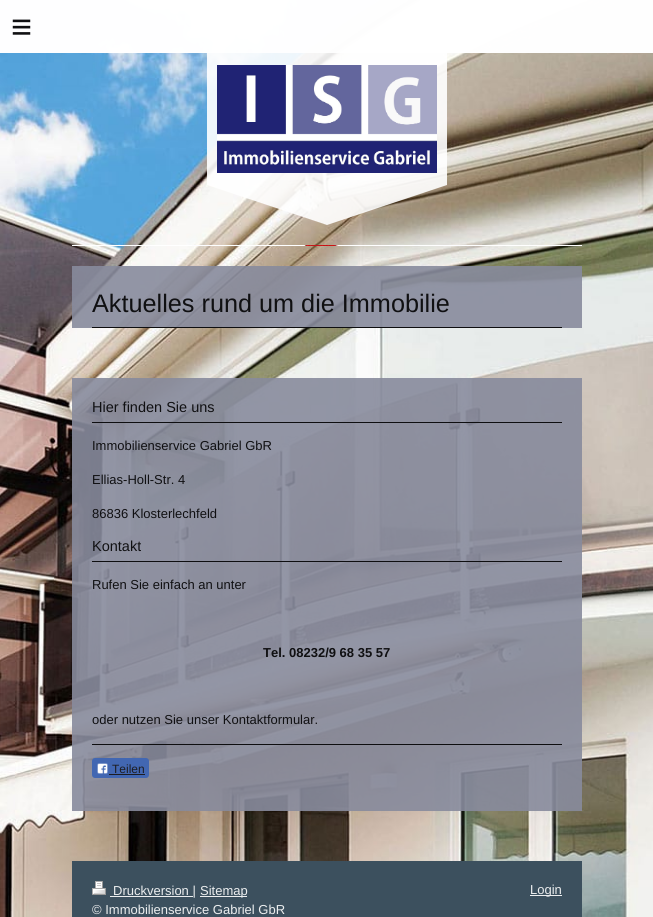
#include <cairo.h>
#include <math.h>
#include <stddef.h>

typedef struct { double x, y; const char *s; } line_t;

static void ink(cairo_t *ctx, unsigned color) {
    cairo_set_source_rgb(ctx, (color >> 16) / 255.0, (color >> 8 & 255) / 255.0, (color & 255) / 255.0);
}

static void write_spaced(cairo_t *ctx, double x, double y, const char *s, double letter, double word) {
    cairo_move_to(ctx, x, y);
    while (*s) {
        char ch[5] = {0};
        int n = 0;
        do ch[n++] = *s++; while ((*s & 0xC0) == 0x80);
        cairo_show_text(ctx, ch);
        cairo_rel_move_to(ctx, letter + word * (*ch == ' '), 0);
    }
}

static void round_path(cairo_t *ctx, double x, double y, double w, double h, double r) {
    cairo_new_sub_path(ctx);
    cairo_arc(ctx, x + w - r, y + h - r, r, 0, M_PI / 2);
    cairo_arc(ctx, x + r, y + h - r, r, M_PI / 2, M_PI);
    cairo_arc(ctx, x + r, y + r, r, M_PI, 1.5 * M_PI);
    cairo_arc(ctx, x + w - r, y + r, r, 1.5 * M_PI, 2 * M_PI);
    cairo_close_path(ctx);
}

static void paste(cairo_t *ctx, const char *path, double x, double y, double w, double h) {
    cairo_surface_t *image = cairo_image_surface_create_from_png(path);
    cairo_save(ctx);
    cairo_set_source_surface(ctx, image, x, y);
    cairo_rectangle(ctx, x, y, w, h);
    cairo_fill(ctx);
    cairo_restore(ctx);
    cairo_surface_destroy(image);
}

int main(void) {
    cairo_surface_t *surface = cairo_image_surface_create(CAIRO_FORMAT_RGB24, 653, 917);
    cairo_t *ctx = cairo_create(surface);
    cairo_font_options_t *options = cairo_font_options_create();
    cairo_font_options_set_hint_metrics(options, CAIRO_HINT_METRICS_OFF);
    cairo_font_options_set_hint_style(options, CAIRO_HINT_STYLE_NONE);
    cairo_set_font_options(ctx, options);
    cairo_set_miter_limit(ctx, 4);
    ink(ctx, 0xFFFFFF);
    cairo_paint(ctx);
    paste(ctx, "media/1.png", 0, 0, 653, 917);
    cairo_set_source_rgba(ctx, 1, 1, 1, 0.99);
    cairo_rectangle(ctx, 0, 0, 653, 53);
    cairo_fill(ctx);
    cairo_select_font_face(ctx, "Liberation Sans", CAIRO_FONT_SLANT_NORMAL, CAIRO_FONT_WEIGHT_NORMAL);
    cairo_set_font_size(ctx, 36);
    ink(ctx, 0x101012);
    write_spaced(ctx, 11, 39, "≡", 10, 0);
    cairo_set_source_rgba(ctx, 1, 1, 1, 0.9);
    cairo_rectangle(ctx, 207, 53, 240, 132);
    cairo_fill(ctx);
    paste(ctx, "media/2.png", 217, 65, 220, 108);
    cairo_new_path(ctx);
    cairo_move_to(ctx, 207, 185);
    cairo_line_to(ctx, 447, 185);
    cairo_line_to(ctx, 327, 225);
    cairo_close_path(ctx);
    cairo_fill(ctx);
    paste(ctx, "media/3.png", 72, 245, 510, 1);
    cairo_set_source_rgba(ctx, 0.533, 0.545, 0.616, 0.9);
    cairo_rectangle(ctx, 72, 266, 510, 62);
    cairo_fill(ctx);
    ink(ctx, 0x0E0E10);
    cairo_rectangle(ctx, 92, 327, 470, 1);
    cairo_fill(ctx);
    cairo_set_font_size(ctx, 25.25);
    ink(ctx, 0x101012);
    cairo_move_to(ctx, 92, 312);
    cairo_show_text(ctx, "Aktuelles rund um die Immobilie");
    cairo_set_source_rgba(ctx, 0.533, 0.545, 0.616, 0.9);
    cairo_rectangle(ctx, 72, 378, 510, 433);
    cairo_fill(ctx);
    ink(ctx, 0x0E0E10);
    cairo_rectangle(ctx, 92, 422, 470, 1);
    cairo_fill(ctx);
    cairo_set_font_size(ctx, 14.5);
    ink(ctx, 0x101012);
    cairo_move_to(ctx, 92, 412);
    cairo_show_text(ctx, "Hier finden Sie uns");
    cairo_set_font_size(ctx, 13);
    {
        static const line_t items[] = {
            {92, 450, "Immobilienservice Gabriel GbR"},
            {92, 484, "Ellias-Holl-Str. 4"},
            {92, 518, "86836 Klosterlechfeld"},
        };
        for (size_t i = 0; i < sizeof items / sizeof *items; i++) {
            cairo_move_to(ctx, items[i].x, items[i].y);
            cairo_show_text(ctx, items[i].s);
        }
    }
    ink(ctx, 0x0E0E10);
    cairo_rectangle(ctx, 92, 561, 470, 1);
    cairo_fill(ctx);
    cairo_set_font_size(ctx, 14.5);
    ink(ctx, 0x101012);
    cairo_move_to(ctx, 92, 551);
    cairo_show_text(ctx, "Kontakt");
    cairo_set_font_size(ctx, 13);
    cairo_move_to(ctx, 92, 589);
    cairo_show_text(ctx, "Rufen Sie einfach an unter");
    cairo_select_font_face(ctx, "Liberation Sans", CAIRO_FONT_SLANT_NORMAL, CAIRO_FONT_WEIGHT_BOLD);
    cairo_move_to(ctx, 263, 657);
    cairo_show_text(ctx, "Tel. 08232/9 68 35 57");
    cairo_select_font_face(ctx, "Liberation Sans", CAIRO_FONT_SLANT_NORMAL, CAIRO_FONT_WEIGHT_NORMAL);
    cairo_move_to(ctx, 92, 724);
    cairo_show_text(ctx, "oder nutzen Sie unser Kontaktformular.");
    ink(ctx, 0x0E0E10);
    cairo_rectangle(ctx, 92, 744, 470, 1);
    cairo_fill(ctx);
    ink(ctx, 0x4267B2);
    round_path(ctx, 92, 758, 57, 20, 3);
    cairo_fill(ctx);
    paste(ctx, "media/4.png", 97, 763, 11, 11);
    cairo_set_font_size(ctx, 12);
    ink(ctx, 0x1D1D22);
    cairo_move_to(ctx, 112, 773);
    cairo_show_text(ctx, "Teilen");
    cairo_rectangle(ctx, 109, 774, 36, 1);
    cairo_fill(ctx);
    ink(ctx, 0x3C505E);
    cairo_rectangle(ctx, 72, 861, 510, 56);
    cairo_fill(ctx);
    paste(ctx, "media/5.png", 92, 881, 14, 14);
    ink(ctx, 0xECEEEF);
    cairo_rectangle(ctx, 110, 896, 83, 1);
    cairo_fill(ctx);
    cairo_set_font_size(ctx, 13);
    cairo_move_to(ctx, 113, 895);
    cairo_show_text(ctx, "Druckversion |");
    cairo_rectangle(ctx, 200, 896, 47, 1);
    cairo_fill(ctx);
    cairo_move_to(ctx, 200, 895);
    cairo_show_text(ctx, "Sitemap");
    cairo_save(ctx);
    cairo_rectangle(ctx, 92, 881, 470, 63);
    cairo_clip(ctx);
    cairo_move_to(ctx, 92, 914);
    cairo_show_text(ctx, "© Immobilienservice Gabriel GbR");
    cairo_restore(ctx);
    cairo_rectangle(ctx, 530, 895, 32, 1);
    cairo_fill(ctx);
    cairo_move_to(ctx, 530, 894);
    cairo_show_text(ctx, "Login");
    cairo_surface_write_to_png(surface, "image.png");
    cairo_font_options_destroy(options);
    cairo_destroy(ctx);
    cairo_surface_destroy(surface);
    return 0;
}
